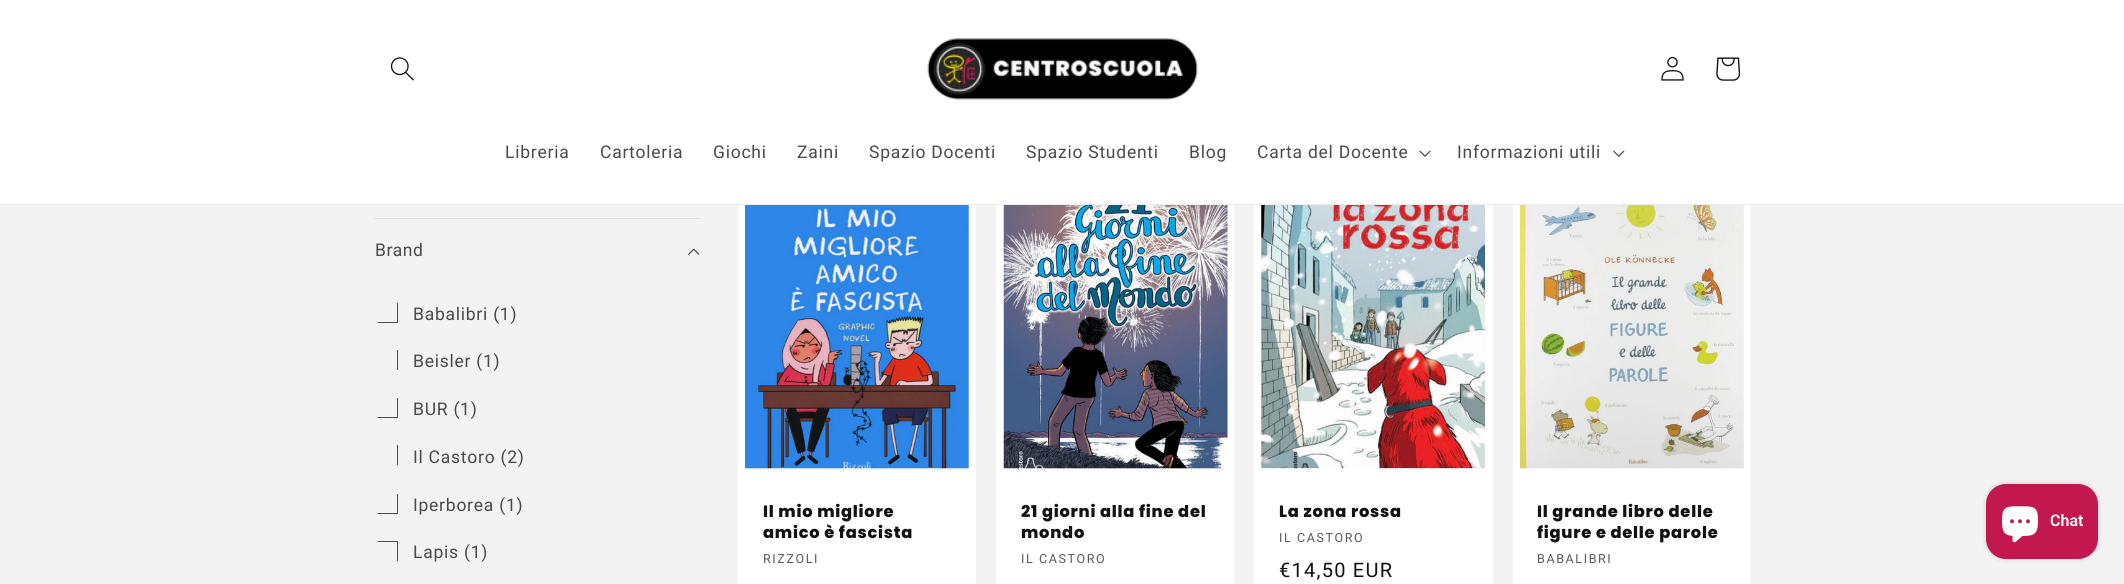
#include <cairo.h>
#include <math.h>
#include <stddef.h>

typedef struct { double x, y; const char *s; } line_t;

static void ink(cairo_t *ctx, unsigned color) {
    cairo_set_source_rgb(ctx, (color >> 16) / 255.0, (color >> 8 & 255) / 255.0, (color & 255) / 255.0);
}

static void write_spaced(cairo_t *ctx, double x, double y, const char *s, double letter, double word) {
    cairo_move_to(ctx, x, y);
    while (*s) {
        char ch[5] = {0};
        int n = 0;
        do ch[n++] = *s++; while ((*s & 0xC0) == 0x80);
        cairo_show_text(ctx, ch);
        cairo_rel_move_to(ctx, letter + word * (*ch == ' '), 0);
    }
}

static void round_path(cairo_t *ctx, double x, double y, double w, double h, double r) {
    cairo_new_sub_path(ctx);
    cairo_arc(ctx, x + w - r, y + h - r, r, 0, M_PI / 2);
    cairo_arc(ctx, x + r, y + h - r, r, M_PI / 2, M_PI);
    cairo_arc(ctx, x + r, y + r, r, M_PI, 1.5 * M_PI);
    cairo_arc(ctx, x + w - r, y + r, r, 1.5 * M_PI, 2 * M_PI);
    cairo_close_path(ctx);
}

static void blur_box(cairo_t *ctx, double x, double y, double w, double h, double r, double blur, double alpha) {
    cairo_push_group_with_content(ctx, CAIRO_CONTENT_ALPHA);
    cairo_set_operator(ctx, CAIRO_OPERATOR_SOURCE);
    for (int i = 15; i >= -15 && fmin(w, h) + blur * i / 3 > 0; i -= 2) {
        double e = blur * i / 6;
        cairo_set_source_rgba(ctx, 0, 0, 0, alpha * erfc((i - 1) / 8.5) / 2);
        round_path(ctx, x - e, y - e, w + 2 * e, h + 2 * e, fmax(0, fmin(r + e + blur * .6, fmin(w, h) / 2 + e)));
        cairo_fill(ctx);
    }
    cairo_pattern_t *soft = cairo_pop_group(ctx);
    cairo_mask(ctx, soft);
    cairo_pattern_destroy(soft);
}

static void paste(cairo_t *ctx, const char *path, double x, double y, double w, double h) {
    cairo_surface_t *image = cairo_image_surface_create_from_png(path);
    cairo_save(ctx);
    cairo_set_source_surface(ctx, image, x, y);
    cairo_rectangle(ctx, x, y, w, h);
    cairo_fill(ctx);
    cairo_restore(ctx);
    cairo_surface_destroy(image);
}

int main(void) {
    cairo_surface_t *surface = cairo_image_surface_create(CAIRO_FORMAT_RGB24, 2124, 584);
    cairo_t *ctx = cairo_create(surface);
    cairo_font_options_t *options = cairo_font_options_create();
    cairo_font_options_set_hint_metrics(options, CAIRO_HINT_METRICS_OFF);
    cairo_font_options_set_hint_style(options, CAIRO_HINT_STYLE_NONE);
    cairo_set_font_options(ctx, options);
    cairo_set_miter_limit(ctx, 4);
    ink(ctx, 0xF3F3F3);
    cairo_paint(ctx);
    ink(ctx, 0xFFFFFF);
    cairo_rectangle(ctx, 0, 0, 2124, 204);
    cairo_fill(ctx);
    ink(ctx, 0xECECEC);
    cairo_rectangle(ctx, 0, 204, 2124, 1);
    cairo_fill(ctx);
    paste(ctx, "media/1.png", 390, 57, 24, 24);
    paste(ctx, "media/2.png", 927, 38, 271, 62);
    paste(ctx, "media/3.png", 1661, 56, 23, 25);
    paste(ctx, "media/4.png", 1716, 57, 25, 24);
    cairo_select_font_face(ctx, "Roboto", CAIRO_FONT_SLANT_NORMAL, CAIRO_FONT_WEIGHT_NORMAL);
    cairo_set_font_size(ctx, 17.5);
    ink(ctx, 0x4A4A4A);
    {
        static const line_t items[] = {
            {505, 158, "Libreria"},
            {600, 158, "Cartoleria"},
            {713, 158, "Giochi"},
            {797, 158, "Zaini"},
            {869, 158, "Spazio Docenti"},
            {1026, 158, "Spazio Studenti"},
            {1189, 158, "Blog"},
            {1257, 158, "Carta del Docente"},
        };
        for (size_t i = 0; i < sizeof items / sizeof *items; i++) {
            write_spaced(ctx, items[i].x, items[i].y, items[i].s, 0.75, 0);
        }
    }
    paste(ctx, "media/5.png", 1419, 150, 12, 7);
    write_spaced(ctx, 1457, 158, "Informazioni utili", 0.75, 0);
    paste(ctx, "media/6.png", 1613, 150, 12, 7);
    ink(ctx, 0xDDDDDD);
    cairo_rectangle(ctx, 375, 218, 325, 1);
    cairo_fill(ctx);
    ink(ctx, 0x4A4A4A);
    write_spaced(ctx, 375, 256, "Brand", 0.5, 0);
    paste(ctx, "media/7.png", 688, 249, 12, 6);
    cairo_save(ctx);
    cairo_rectangle(ctx, 378, 303, 20, 20);
    cairo_clip(ctx);
    cairo_rectangle(ctx, 377.5, 302.5, 20, 20);
    cairo_set_line_width(ctx, 1);
    cairo_stroke(ctx);
    cairo_restore(ctx);
    write_spaced(ctx, 413, 320, "Babalibri (1)", 0.75, 0);
    cairo_save(ctx);
    cairo_rectangle(ctx, 378, 350, 20, 20);
    cairo_clip(ctx);
    cairo_rectangle(ctx, 377.5, 349.5, 20, 21);
    cairo_set_line_width(ctx, 1);
    cairo_stroke(ctx);
    cairo_restore(ctx);
    write_spaced(ctx, 413, 367, "Beisler (1)", 0.75, 0);
    cairo_save(ctx);
    cairo_rectangle(ctx, 378, 398, 20, 20);
    cairo_clip(ctx);
    cairo_rectangle(ctx, 377.5, 397.5, 20, 20);
    cairo_set_line_width(ctx, 1);
    cairo_stroke(ctx);
    cairo_restore(ctx);
    write_spaced(ctx, 413, 415, "BUR (1)", 0.75, 0);
    cairo_save(ctx);
    cairo_rectangle(ctx, 378, 445, 20, 20);
    cairo_clip(ctx);
    cairo_rectangle(ctx, 377.5, 444.5, 20, 21);
    cairo_set_line_width(ctx, 1);
    cairo_stroke(ctx);
    cairo_restore(ctx);
    write_spaced(ctx, 413, 463, "Il Castoro (2)", 0.75, 0);
    cairo_save(ctx);
    cairo_rectangle(ctx, 378, 494, 20, 20);
    cairo_clip(ctx);
    cairo_rectangle(ctx, 377.5, 493.5, 20, 20);
    cairo_set_line_width(ctx, 1);
    cairo_stroke(ctx);
    cairo_restore(ctx);
    write_spaced(ctx, 413, 511, "Iperborea (1)", 0.75, 0);
    cairo_save(ctx);
    cairo_rectangle(ctx, 378, 541, 20, 20);
    cairo_clip(ctx);
    cairo_rectangle(ctx, 377.5, 541.5, 20, 20);
    cairo_set_line_width(ctx, 1);
    cairo_stroke(ctx);
    cairo_restore(ctx);
    write_spaced(ctx, 413, 558, "Lapis (1)", 0.75, 0);
    ink(ctx, 0xFFFFFF);
    cairo_rectangle(ctx, 738, 205, 238, 379);
    cairo_fill(ctx);
    paste(ctx, "media/8.png", 745, 205, 224, 264);
    cairo_select_font_face(ctx, "Poppins ExtraBold", CAIRO_FONT_SLANT_NORMAL, CAIRO_FONT_WEIGHT_NORMAL);
    cairo_set_font_size(ctx, 16.25);
    ink(ctx, 0x121212);
    write_spaced(ctx, 763, 517, "Il mio migliore", 0.75, 0);
    write_spaced(ctx, 763, 538, "amico è fascista", 0.75, 0);
    cairo_select_font_face(ctx, "Roboto", CAIRO_FONT_SLANT_NORMAL, CAIRO_FONT_WEIGHT_NORMAL);
    cairo_set_font_size(ctx, 12.5);
    ink(ctx, 0x595959);
    write_spaced(ctx, 763, 563, "RIZZOLI", 1.6, 0);
    ink(ctx, 0xFFFFFF);
    cairo_rectangle(ctx, 996, 205, 238, 379);
    cairo_fill(ctx);
    paste(ctx, "media/9.png", 1003, 205, 225, 264);
    cairo_select_font_face(ctx, "Poppins ExtraBold", CAIRO_FONT_SLANT_NORMAL, CAIRO_FONT_WEIGHT_NORMAL);
    cairo_set_font_size(ctx, 16.25);
    ink(ctx, 0x121212);
    write_spaced(ctx, 1021, 517, "21 giorni alla fine del", 0.75, 0);
    write_spaced(ctx, 1021, 538, "mondo", 0.75, 0);
    cairo_select_font_face(ctx, "Roboto", CAIRO_FONT_SLANT_NORMAL, CAIRO_FONT_WEIGHT_NORMAL);
    cairo_set_font_size(ctx, 12.5);
    ink(ctx, 0x595959);
    write_spaced(ctx, 1021, 563, "IL CASTORO", 1.6, 0);
    ink(ctx, 0xFFFFFF);
    cairo_rectangle(ctx, 1254, 205, 239, 379);
    cairo_fill(ctx);
    paste(ctx, "media/10.png", 1261, 205, 224, 264);
    cairo_select_font_face(ctx, "Poppins ExtraBold", CAIRO_FONT_SLANT_NORMAL, CAIRO_FONT_WEIGHT_NORMAL);
    cairo_set_font_size(ctx, 16.25);
    ink(ctx, 0x121212);
    write_spaced(ctx, 1279, 517, "La zona rossa", 0.75, 0);
    cairo_select_font_face(ctx, "Roboto", CAIRO_FONT_SLANT_NORMAL, CAIRO_FONT_WEIGHT_NORMAL);
    cairo_set_font_size(ctx, 12.5);
    ink(ctx, 0x595959);
    write_spaced(ctx, 1279, 542, "IL CASTORO", 1.6, 0);
    cairo_set_font_size(ctx, 20);
    ink(ctx, 0x121212);
    write_spaced(ctx, 1279, 577, "€14,50 EUR", 1.25, 0);
    ink(ctx, 0xFFFFFF);
    cairo_rectangle(ctx, 1513, 205, 237, 379);
    cairo_fill(ctx);
    paste(ctx, "media/11.png", 1520, 205, 224, 264);
    cairo_select_font_face(ctx, "Poppins ExtraBold", CAIRO_FONT_SLANT_NORMAL, CAIRO_FONT_WEIGHT_NORMAL);
    cairo_set_font_size(ctx, 16.25);
    ink(ctx, 0x121212);
    write_spaced(ctx, 1537, 517, "Il grande libro delle", 0.75, 0);
    write_spaced(ctx, 1537, 538, "figure e delle parole", 0.75, 0);
    cairo_select_font_face(ctx, "Roboto", CAIRO_FONT_SLANT_NORMAL, CAIRO_FONT_WEIGHT_NORMAL);
    cairo_set_font_size(ctx, 12.5);
    ink(ctx, 0x595959);
    write_spaced(ctx, 1537, 563, "BABALIBRI", 1.6, 0);
    ink(ctx, 0x000000);
    blur_box(ctx, 1986, 484, 112, 75, 20, 3, 0.15);
    ink(ctx, 0xC31750);
    round_path(ctx, 1986, 484, 112, 75, 20);
    cairo_fill(ctx);
    paste(ctx, "media/12.png", 2002, 506, 36, 37);
    cairo_select_font_face(ctx, "Roboto SemiBold", CAIRO_FONT_SLANT_NORMAL, CAIRO_FONT_WEIGHT_NORMAL);
    cairo_set_font_size(ctx, 16);
    ink(ctx, 0xFFFFFF);
    cairo_move_to(ctx, 2050, 526);
    cairo_show_text(ctx, "Chat");
    cairo_surface_write_to_png(surface, "image.png");
    cairo_font_options_destroy(options);
    cairo_destroy(ctx);
    cairo_surface_destroy(surface);
    return 0;
}
